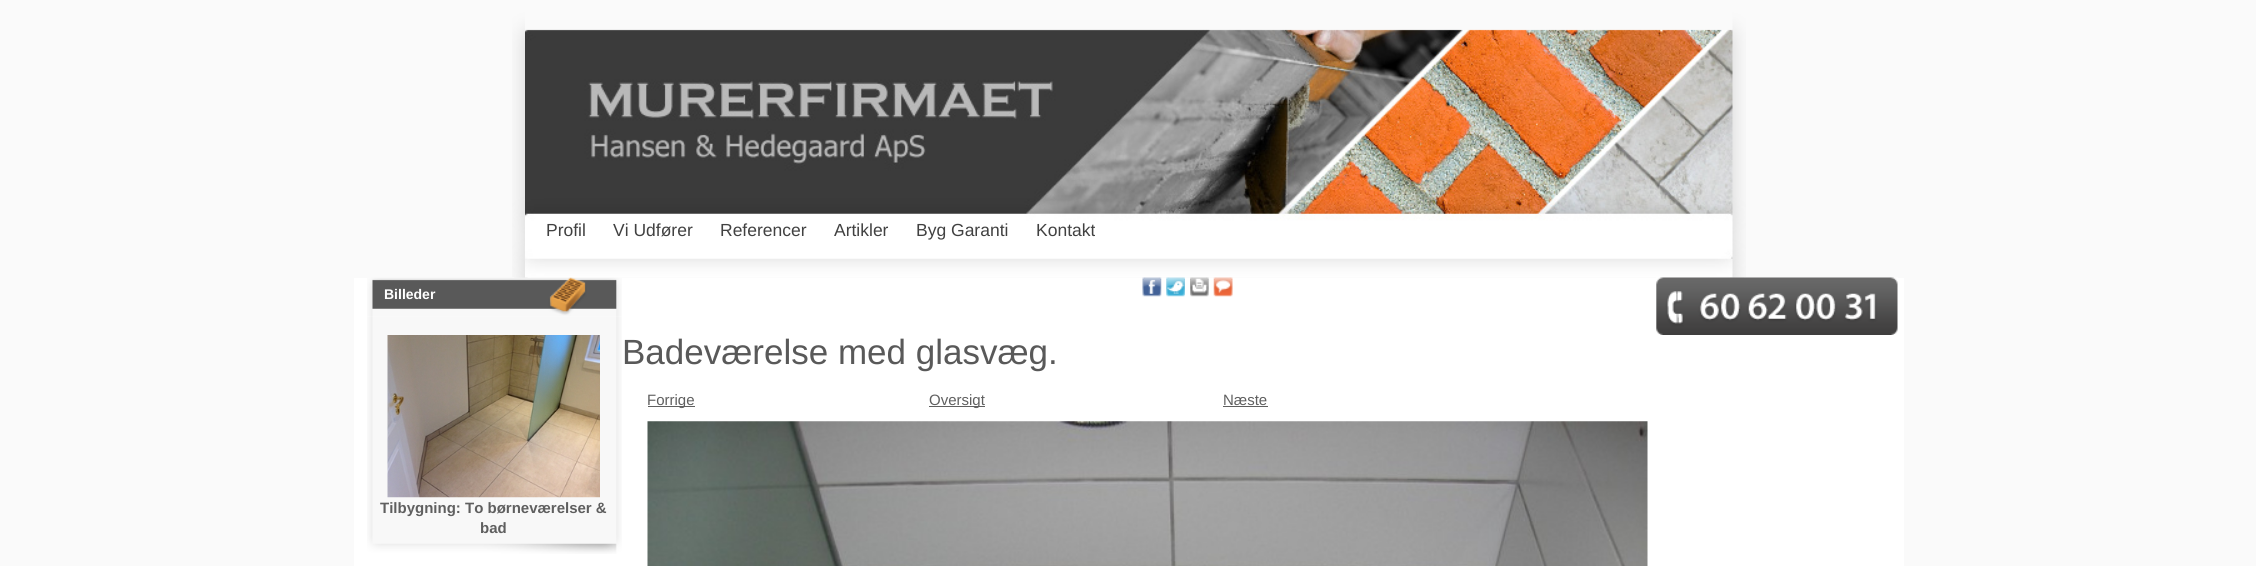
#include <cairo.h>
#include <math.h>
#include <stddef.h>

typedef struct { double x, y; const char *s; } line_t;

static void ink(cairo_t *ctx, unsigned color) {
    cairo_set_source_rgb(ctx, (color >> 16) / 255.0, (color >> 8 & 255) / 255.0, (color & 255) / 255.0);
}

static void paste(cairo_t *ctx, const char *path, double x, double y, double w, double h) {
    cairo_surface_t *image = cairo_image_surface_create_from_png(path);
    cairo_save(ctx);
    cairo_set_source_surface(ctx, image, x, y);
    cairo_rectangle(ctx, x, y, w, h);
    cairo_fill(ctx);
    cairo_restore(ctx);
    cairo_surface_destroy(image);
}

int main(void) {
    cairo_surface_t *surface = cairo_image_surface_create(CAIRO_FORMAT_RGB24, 2256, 566);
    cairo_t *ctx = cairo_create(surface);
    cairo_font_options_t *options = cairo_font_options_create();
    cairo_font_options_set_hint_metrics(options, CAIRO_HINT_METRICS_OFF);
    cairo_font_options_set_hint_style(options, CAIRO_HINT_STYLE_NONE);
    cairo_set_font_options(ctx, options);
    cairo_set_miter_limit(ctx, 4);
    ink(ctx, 0xFAFAFA);
    cairo_paint(ctx);
    paste(ctx, "media/1.png", 514, 277, 1230, 1);
    paste(ctx, "media/2.png", 512, 0, 1234, 277);
    paste(ctx, "media/3.png", 525, 0, 1208, 278);
    cairo_select_font_face(ctx, "Liberation Sans", CAIRO_FONT_SLANT_NORMAL, CAIRO_FONT_WEIGHT_NORMAL);
    cairo_set_font_size(ctx, 17.5);
    ink(ctx, 0x414141);
    {
        static const line_t items[] = {
            {546, 236, "Profil"},
            {613, 236, "Vi Udfører"},
            {720, 236, "Referencer"},
            {834, 236, "Artikler"},
            {916, 236, "Byg Garanti"},
            {1036, 236, "Kontakt"},
        };
        for (size_t i = 0; i < sizeof items / sizeof *items; i++) {
            cairo_move_to(ctx, items[i].x, items[i].y);
            cairo_show_text(ctx, items[i].s);
        }
    }
    ink(ctx, 0xFFFFFF);
    cairo_rectangle(ctx, 354, 278, 1550, 288);
    cairo_fill(ctx);
    paste(ctx, "media/4.png", 367, 277, 255, 40);
    cairo_select_font_face(ctx, "Liberation Sans", CAIRO_FONT_SLANT_NORMAL, CAIRO_FONT_WEIGHT_BOLD);
    cairo_set_font_size(ctx, 14);
    cairo_move_to(ctx, 384, 299);
    cairo_show_text(ctx, "Billeder");
    paste(ctx, "media/5.png", 367, 316, 255, 238);
    paste(ctx, "media/6.png", 387, 335, 213, 163);
    cairo_set_font_size(ctx, 15);
    ink(ctx, 0x5F5F5F);
    cairo_move_to(ctx, 380, 513);
    cairo_show_text(ctx, "Tilbygning: To børneværelser &");
    cairo_move_to(ctx, 480, 533);
    cairo_show_text(ctx, "bad");
    paste(ctx, "media/7.png", 1142, 277, 20, 20);
    paste(ctx, "media/8.png", 1166, 277, 19, 20);
    paste(ctx, "media/9.png", 1190, 277, 19, 20);
    paste(ctx, "media/10.png", 1213, 277, 20, 20);
    cairo_select_font_face(ctx, "Liberation Sans", CAIRO_FONT_SLANT_NORMAL, CAIRO_FONT_WEIGHT_NORMAL);
    cairo_set_font_size(ctx, 35);
    ink(ctx, 0x595959);
    cairo_move_to(ctx, 622, 364);
    cairo_show_text(ctx, "Badeværelse med glasvæg.");
    ink(ctx, 0x5F5F5F);
    cairo_rectangle(ctx, 648, 406, 47, 1);
    cairo_fill(ctx);
    cairo_set_font_size(ctx, 15);
    cairo_move_to(ctx, 647, 405);
    cairo_show_text(ctx, "Forrige");
    cairo_rectangle(ctx, 929, 406, 56, 1);
    cairo_fill(ctx);
    cairo_move_to(ctx, 929, 405);
    cairo_show_text(ctx, "Oversigt");
    cairo_move_to(ctx, 1223, 405);
    cairo_show_text(ctx, "Næste");
    cairo_rectangle(ctx, 1223, 406, 45, 1);
    cairo_fill(ctx);
    paste(ctx, "media/11.png", 647, 421, 1001, 145);
    paste(ctx, "media/12.png", 1656, 277, 242, 58);
    cairo_surface_write_to_png(surface, "image.png");
    cairo_font_options_destroy(options);
    cairo_destroy(ctx);
    cairo_surface_destroy(surface);
    return 0;
}
